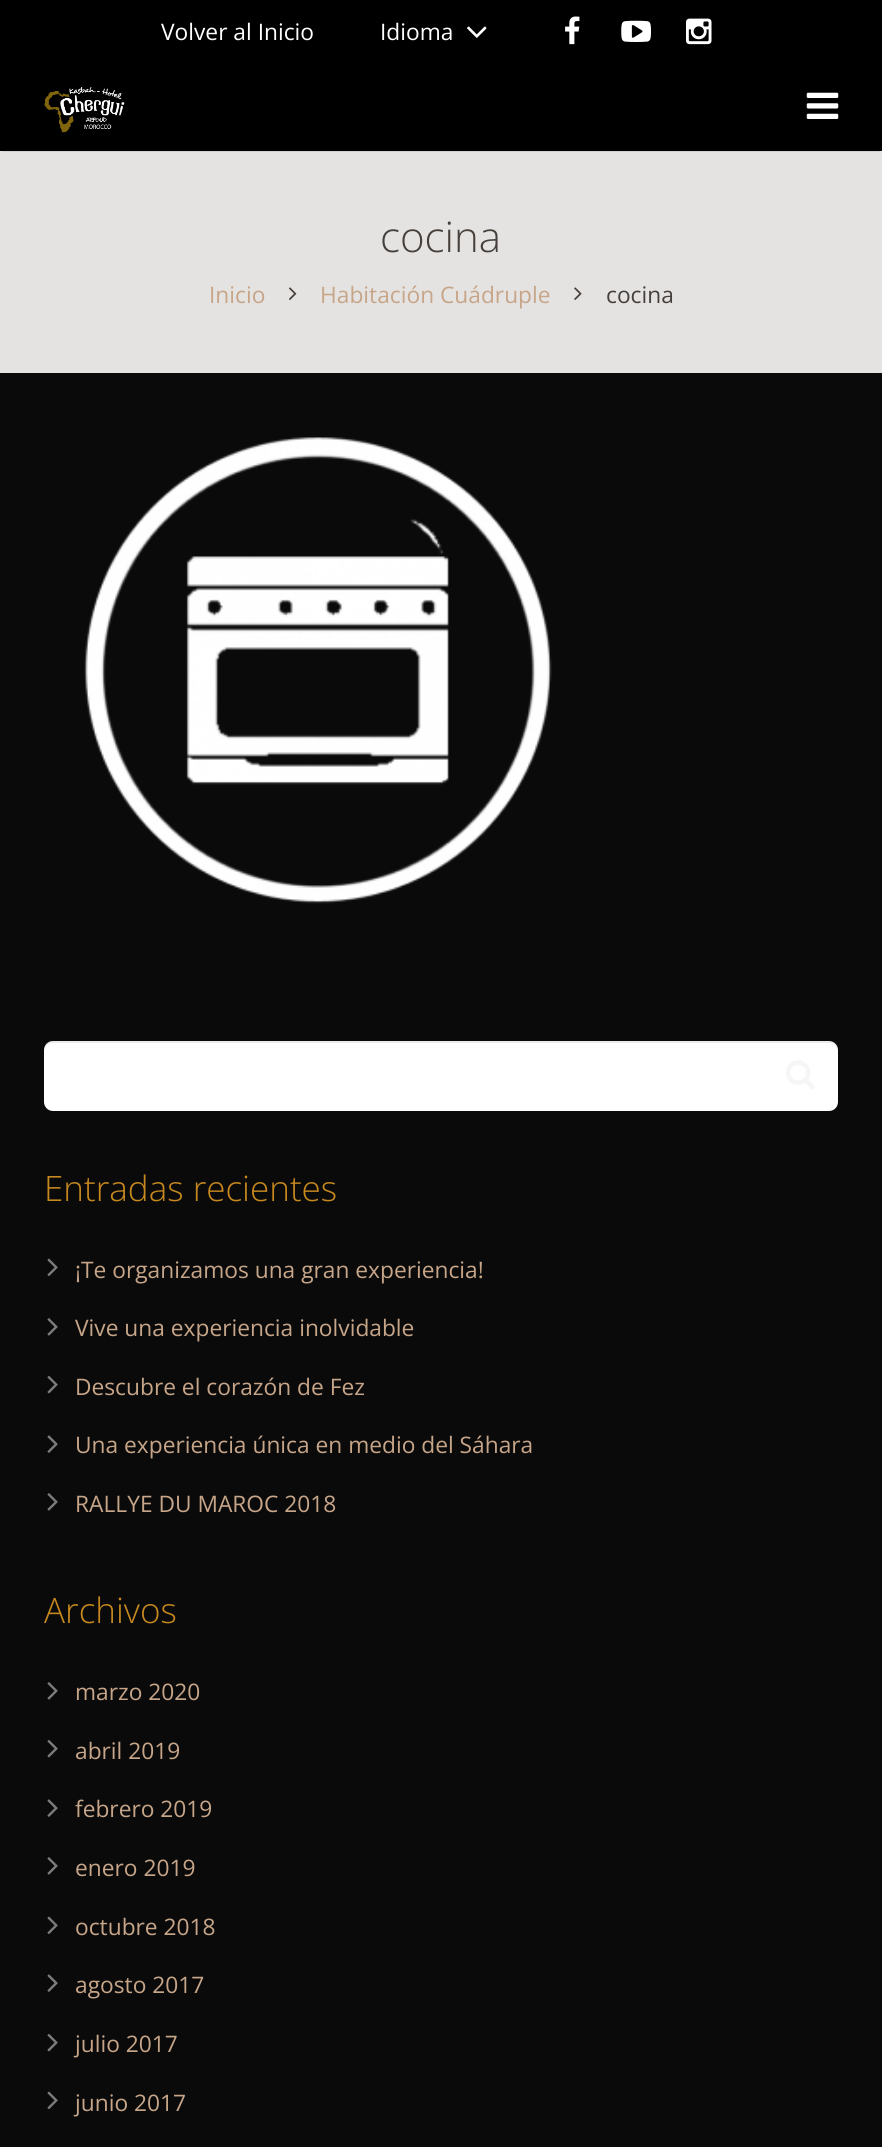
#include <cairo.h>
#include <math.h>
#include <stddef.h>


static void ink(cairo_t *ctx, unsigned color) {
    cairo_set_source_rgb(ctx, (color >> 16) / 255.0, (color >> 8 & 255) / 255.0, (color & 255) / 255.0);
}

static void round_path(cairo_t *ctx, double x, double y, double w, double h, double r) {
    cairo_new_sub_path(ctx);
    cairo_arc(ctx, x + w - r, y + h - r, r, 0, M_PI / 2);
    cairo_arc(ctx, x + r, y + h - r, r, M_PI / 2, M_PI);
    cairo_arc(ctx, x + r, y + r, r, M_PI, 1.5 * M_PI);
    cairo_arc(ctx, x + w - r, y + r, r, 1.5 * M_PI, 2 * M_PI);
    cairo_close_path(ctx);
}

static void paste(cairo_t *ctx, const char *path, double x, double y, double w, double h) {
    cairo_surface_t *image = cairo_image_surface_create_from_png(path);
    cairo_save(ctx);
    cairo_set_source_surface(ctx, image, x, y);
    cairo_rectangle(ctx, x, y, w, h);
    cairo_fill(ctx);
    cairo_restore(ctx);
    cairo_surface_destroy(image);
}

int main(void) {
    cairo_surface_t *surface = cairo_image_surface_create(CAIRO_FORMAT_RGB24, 882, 2147);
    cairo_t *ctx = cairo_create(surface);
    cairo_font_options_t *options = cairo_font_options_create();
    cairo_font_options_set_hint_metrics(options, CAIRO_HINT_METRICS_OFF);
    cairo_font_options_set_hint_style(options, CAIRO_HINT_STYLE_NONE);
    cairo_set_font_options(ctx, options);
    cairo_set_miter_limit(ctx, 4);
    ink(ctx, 0x0A0A0A);
    cairo_paint(ctx);
    ink(ctx, 0x000000);
    cairo_rectangle(ctx, 0, 0, 882, 151);
    cairo_fill(ctx);
    cairo_select_font_face(ctx, "Open Sans", CAIRO_FONT_SLANT_NORMAL, CAIRO_FONT_WEIGHT_NORMAL);
    cairo_set_font_size(ctx, 22.75);
    ink(ctx, 0xFFFFFF);
    cairo_move_to(ctx, 161, 40);
    cairo_show_text(ctx, "Volver al Inicio");
    cairo_move_to(ctx, 380, 40);
    cairo_show_text(ctx, "Idioma");
    paste(ctx, "media/1.png", 467, 26, 20, 12);
    paste(ctx, "media/2.png", 565, 16, 15, 29);
    paste(ctx, "media/3.png", 621, 20, 30, 22);
    paste(ctx, "media/4.png", 686, 18, 26, 27);
    paste(ctx, "media/5.png", 44, 86, 81, 47);
    paste(ctx, "media/6.png", 806, 92, 33, 27);
    ink(ctx, 0xE5E3E1);
    cairo_rectangle(ctx, 0, 151, 882, 222);
    cairo_fill(ctx);
    ink(ctx, 0xD3D1CF);
    cairo_rectangle(ctx, 2, 151, 878, 1);
    cairo_fill(ctx);
    cairo_select_font_face(ctx, "Open Sans Light", CAIRO_FONT_SLANT_NORMAL, CAIRO_FONT_WEIGHT_NORMAL);
    cairo_set_font_size(ctx, 42);
    ink(ctx, 0x46403C);
    cairo_move_to(ctx, 380, 252);
    cairo_show_text(ctx, "cocina");
    cairo_select_font_face(ctx, "Open Sans", CAIRO_FONT_SLANT_NORMAL, CAIRO_FONT_WEIGHT_NORMAL);
    cairo_set_font_size(ctx, 22.75);
    ink(ctx, 0xC7A589);
    cairo_move_to(ctx, 209, 303);
    cairo_show_text(ctx, "Inicio");
    paste(ctx, "media/7.png", 289, 287, 8, 13);
    cairo_move_to(ctx, 320, 303);
    cairo_show_text(ctx, "Habitación Cuádruple");
    paste(ctx, "media/8.png", 574, 287, 8, 13);
    ink(ctx, 0x46403C);
    cairo_move_to(ctx, 606, 303);
    cairo_show_text(ctx, "cocina");
    paste(ctx, "media/9.png", 84, 437, 468, 467);
    ink(ctx, 0xFFFFFF);
    round_path(ctx, 44, 1041, 794, 70, 9);
    cairo_fill(ctx);
    cairo_set_source_rgba(ctx, 0, 0, 0, 0.08);
    cairo_new_path(ctx);
    cairo_move_to(ctx, 52, 1043);
    cairo_line_to(ctx, 830, 1043);
    cairo_curve_to(ctx, 834, 1043, 838, 1047, 838, 1052);
    cairo_curve_to(ctx, 838, 1046, 835, 1041, 829, 1041);
    cairo_line_to(ctx, 53, 1041);
    cairo_curve_to(ctx, 47, 1041, 44, 1046, 44, 1052);
    cairo_curve_to(ctx, 44, 1047, 48, 1043, 52, 1043);
    cairo_close_path(ctx);
    cairo_fill(ctx);
    paste(ctx, "media/10.png", 786, 1060, 29, 29);
    cairo_select_font_face(ctx, "Open Sans Light", CAIRO_FONT_SLANT_NORMAL, CAIRO_FONT_WEIGHT_NORMAL);
    cairo_set_font_size(ctx, 35);
    ink(ctx, 0xC7891E);
    cairo_move_to(ctx, 44, 1201);
    cairo_show_text(ctx, "Entradas recientes");
    paste(ctx, "media/11.png", 47, 1258, 11, 18);
    cairo_select_font_face(ctx, "Open Sans", CAIRO_FONT_SLANT_NORMAL, CAIRO_FONT_WEIGHT_NORMAL);
    cairo_set_font_size(ctx, 22.75);
    ink(ctx, 0xC7A589);
    cairo_move_to(ctx, 75, 1278);
    cairo_show_text(ctx, "¡Te organizamos una gran experiencia!");
    paste(ctx, "media/12.png", 47, 1318, 11, 18);
    cairo_move_to(ctx, 75, 1336);
    cairo_show_text(ctx, "Vive una experiencia inolvidable");
    paste(ctx, "media/13.png", 47, 1376, 11, 18);
    cairo_move_to(ctx, 75, 1395);
    cairo_show_text(ctx, "Descubre el corazón de Fez");
    paste(ctx, "media/14.png", 47, 1435, 11, 18);
    cairo_move_to(ctx, 75, 1453);
    cairo_show_text(ctx, "Una experiencia única en medio del Sáhara");
    paste(ctx, "media/12.png", 47, 1493, 11, 18);
    cairo_move_to(ctx, 75, 1512);
    cairo_show_text(ctx, "RALLYE DU MAROC 2018");
    cairo_select_font_face(ctx, "Open Sans Light", CAIRO_FONT_SLANT_NORMAL, CAIRO_FONT_WEIGHT_NORMAL);
    cairo_set_font_size(ctx, 35);
    ink(ctx, 0xC7891E);
    cairo_move_to(ctx, 44, 1623);
    cairo_show_text(ctx, "Archivos");
    paste(ctx, "media/12.png", 47, 1682, 11, 18);
    cairo_select_font_face(ctx, "Open Sans", CAIRO_FONT_SLANT_NORMAL, CAIRO_FONT_WEIGHT_NORMAL);
    cairo_set_font_size(ctx, 22.75);
    ink(ctx, 0xC7A589);
    cairo_move_to(ctx, 75, 1700);
    cairo_show_text(ctx, "marzo 2020");
    paste(ctx, "media/13.png", 47, 1740, 11, 18);
    cairo_move_to(ctx, 75, 1759);
    cairo_show_text(ctx, "abril 2019");
    paste(ctx, "media/15.png", 47, 1799, 11, 18);
    cairo_move_to(ctx, 75, 1817);
    cairo_show_text(ctx, "febrero 2019");
    paste(ctx, "media/16.png", 47, 1857, 11, 18);
    cairo_move_to(ctx, 75, 1876);
    cairo_show_text(ctx, "enero 2019");
    paste(ctx, "media/11.png", 47, 1916, 11, 18);
    cairo_move_to(ctx, 75, 1935);
    cairo_show_text(ctx, "octubre 2018");
    paste(ctx, "media/15.png", 47, 1974, 11, 18);
    cairo_move_to(ctx, 75, 1993);
    cairo_show_text(ctx, "agosto 2017");
    paste(ctx, "media/13.png", 47, 2034, 11, 18);
    cairo_move_to(ctx, 75, 2052);
    cairo_show_text(ctx, "julio 2017");
    paste(ctx, "media/11.png", 47, 2091, 11, 18);
    cairo_move_to(ctx, 75, 2111);
    cairo_show_text(ctx, "junio 2017");
    cairo_surface_write_to_png(surface, "image.png");
    cairo_font_options_destroy(options);
    cairo_destroy(ctx);
    cairo_surface_destroy(surface);
    return 0;
}
